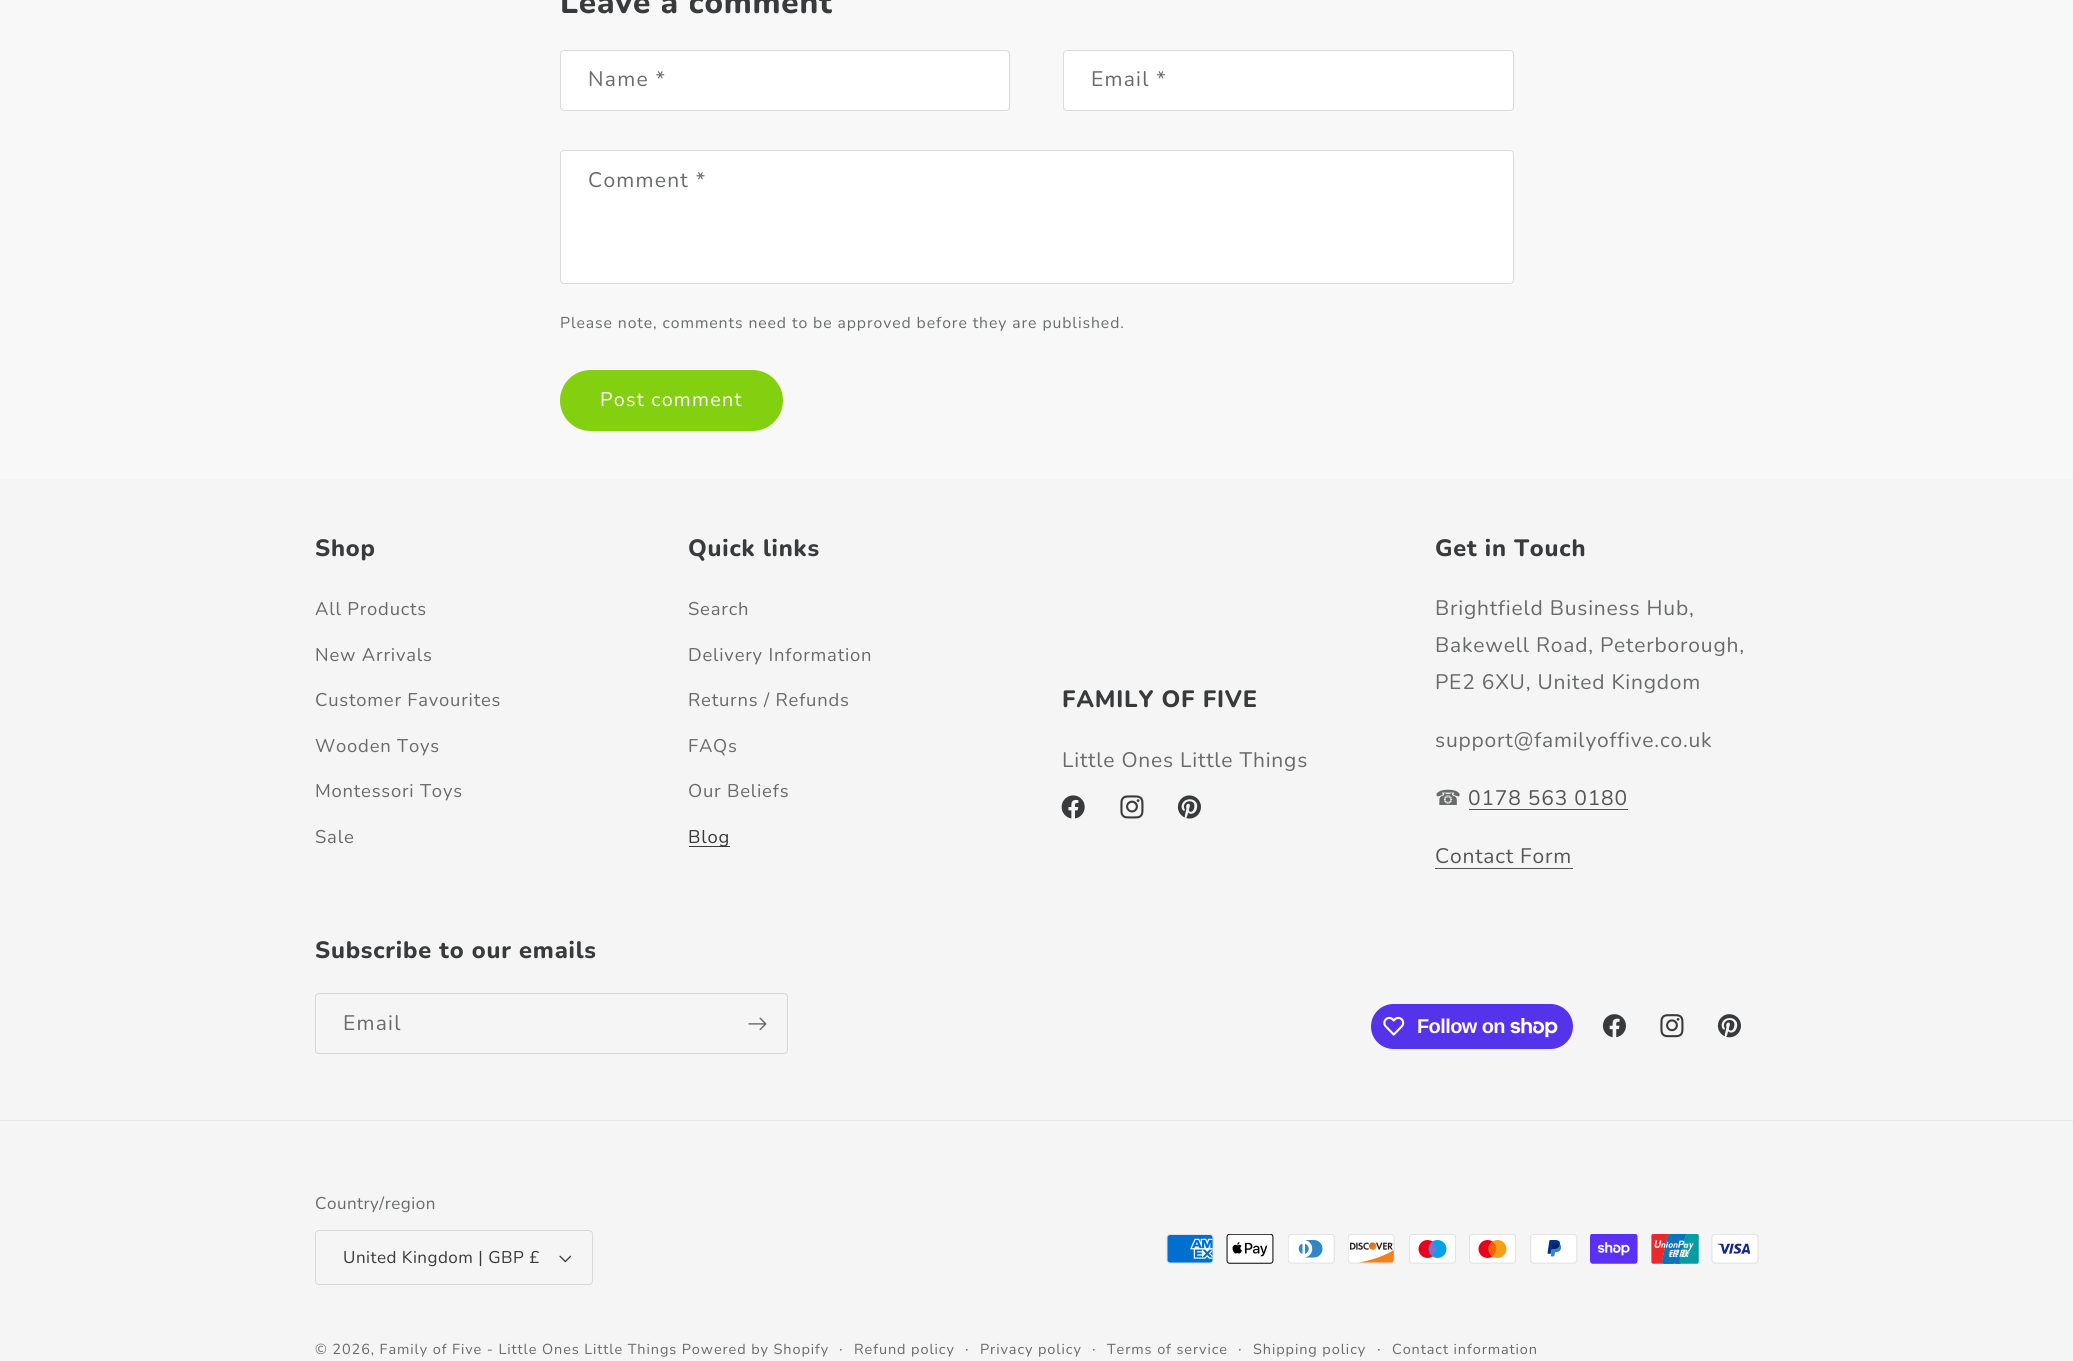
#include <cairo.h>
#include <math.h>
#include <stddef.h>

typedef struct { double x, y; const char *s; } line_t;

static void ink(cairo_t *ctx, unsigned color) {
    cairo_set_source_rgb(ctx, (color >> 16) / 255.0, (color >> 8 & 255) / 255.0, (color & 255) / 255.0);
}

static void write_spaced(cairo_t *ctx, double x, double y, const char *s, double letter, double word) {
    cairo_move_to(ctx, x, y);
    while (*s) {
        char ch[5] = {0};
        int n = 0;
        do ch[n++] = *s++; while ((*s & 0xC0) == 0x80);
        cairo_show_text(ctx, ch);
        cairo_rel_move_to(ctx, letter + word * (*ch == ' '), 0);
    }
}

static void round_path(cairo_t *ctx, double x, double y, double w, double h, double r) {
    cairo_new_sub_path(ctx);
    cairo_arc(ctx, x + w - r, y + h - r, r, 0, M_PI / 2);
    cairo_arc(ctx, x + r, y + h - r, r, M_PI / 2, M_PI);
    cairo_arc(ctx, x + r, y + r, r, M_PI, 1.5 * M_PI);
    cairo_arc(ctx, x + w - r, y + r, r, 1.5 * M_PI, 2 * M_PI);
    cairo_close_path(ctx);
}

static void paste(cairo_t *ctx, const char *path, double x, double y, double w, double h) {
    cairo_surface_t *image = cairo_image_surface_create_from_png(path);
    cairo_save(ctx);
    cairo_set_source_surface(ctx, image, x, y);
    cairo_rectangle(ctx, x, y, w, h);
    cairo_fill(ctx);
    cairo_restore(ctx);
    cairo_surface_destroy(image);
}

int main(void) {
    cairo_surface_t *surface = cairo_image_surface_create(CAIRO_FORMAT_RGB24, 2073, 1361);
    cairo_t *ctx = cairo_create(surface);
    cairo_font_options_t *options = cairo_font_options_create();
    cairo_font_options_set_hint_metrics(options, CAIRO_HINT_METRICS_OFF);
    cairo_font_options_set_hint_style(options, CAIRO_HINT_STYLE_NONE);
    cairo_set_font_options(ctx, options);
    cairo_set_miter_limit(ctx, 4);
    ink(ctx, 0xF8F8F8);
    cairo_paint(ctx);
    cairo_select_font_face(ctx, "Nunito ExtraBold", CAIRO_FONT_SLANT_NORMAL, CAIRO_FONT_WEIGHT_NORMAL);
    cairo_set_font_size(ctx, 31.5);
    ink(ctx, 0x393A3B);
    write_spaced(ctx, 560, 13, "Leave a comment", 0.8, 0);
    ink(ctx, 0xFFFFFF);
    round_path(ctx, 561, 51, 448, 59, 2.5);
    cairo_fill(ctx);
    round_path(ctx, 560.5, 50.5, 449, 60, 3.5);
    ink(ctx, 0xDBDBDC);
    cairo_set_line_width(ctx, 1);
    cairo_stroke(ctx);
    cairo_select_font_face(ctx, "Nunito", CAIRO_FONT_SLANT_NORMAL, CAIRO_FONT_WEIGHT_NORMAL);
    cairo_set_font_size(ctx, 21);
    ink(ctx, 0x696A6A);
    write_spaced(ctx, 588, 86, "Name *", 1.25, 0);
    ink(ctx, 0xFFFFFF);
    round_path(ctx, 1064, 51, 449, 59, 2.5);
    cairo_fill(ctx);
    round_path(ctx, 1063.5, 50.5, 450, 60, 3.5);
    cairo_set_source_rgba(ctx, 0.224, 0.227, 0.231, 0.15);
    cairo_stroke(ctx);
    ink(ctx, 0x696A6A);
    write_spaced(ctx, 1091, 86, "Email *", 1.25, 0);
    ink(ctx, 0xFFFFFF);
    round_path(ctx, 561, 151, 952, 132, 2.5);
    cairo_fill(ctx);
    round_path(ctx, 560.5, 150.5, 953, 133, 3.5);
    cairo_set_source_rgba(ctx, 0.224, 0.227, 0.231, 0.15);
    cairo_stroke(ctx);
    ink(ctx, 0x696A6A);
    write_spaced(ctx, 588, 187, "Comment *", 1.25, 0);
    cairo_set_font_size(ctx, 15.75);
    write_spaced(ctx, 560, 328, "Please note, comments need to be approved before they are published.", 0.92, 0);
    ink(ctx, 0x82D010);
    round_path(ctx, 560, 370, 223, 61, 30.5);
    cairo_fill(ctx);
    cairo_set_font_size(ctx, 19.75);
    ink(ctx, 0xFCFCFC);
    write_spaced(ctx, 600, 406, "Post comment", 1.25, 0);
    ink(ctx, 0xF5F5F5);
    cairo_rectangle(ctx, 0, 479, 2073, 882);
    cairo_fill(ctx);
    cairo_select_font_face(ctx, "Nunito ExtraBold", CAIRO_FONT_SLANT_NORMAL, CAIRO_FONT_WEIGHT_NORMAL);
    cairo_set_font_size(ctx, 23.6);
    ink(ctx, 0x393A3B);
    write_spaced(ctx, 315, 556, "Shop", 0.8, 0);
    cairo_select_font_face(ctx, "Nunito", CAIRO_FONT_SLANT_NORMAL, CAIRO_FONT_WEIGHT_NORMAL);
    cairo_set_font_size(ctx, 18.4);
    ink(ctx, 0x696A6A);
    {
        static const line_t items[] = {
            {315, 615, "All Products"},
            {315, 661, "New Arrivals"},
            {315, 706, "Customer Favourites"},
            {315, 752, "Wooden Toys"},
            {315, 797, "Montessori Toys"},
            {315, 843, "Sale"},
        };
        for (size_t i = 0; i < sizeof items / sizeof *items; i++) {
            write_spaced(ctx, items[i].x, items[i].y, items[i].s, 0.8, 0);
        }
    }
    cairo_select_font_face(ctx, "Nunito ExtraBold", CAIRO_FONT_SLANT_NORMAL, CAIRO_FONT_WEIGHT_NORMAL);
    cairo_set_font_size(ctx, 23.6);
    ink(ctx, 0x393A3B);
    write_spaced(ctx, 688, 556, "Quick links", 0.8, 0);
    cairo_select_font_face(ctx, "Nunito", CAIRO_FONT_SLANT_NORMAL, CAIRO_FONT_WEIGHT_NORMAL);
    cairo_set_font_size(ctx, 18.4);
    ink(ctx, 0x696A6A);
    {
        static const line_t items[] = {
            {688, 615, "Search"},
            {688, 661, "Delivery Information"},
            {688, 706, "Returns / Refunds"},
            {688, 752, "FAQs"},
            {688, 797, "Our Beliefs"},
        };
        for (size_t i = 0; i < sizeof items / sizeof *items; i++) {
            write_spaced(ctx, items[i].x, items[i].y, items[i].s, 0.8, 0);
        }
    }
    ink(ctx, 0x393A3B);
    cairo_rectangle(ctx, 689, 846, 41, 1);
    cairo_fill(ctx);
    write_spaced(ctx, 688, 843, "Blog", 0.8, 0);
    cairo_select_font_face(ctx, "Nunito ExtraBold", CAIRO_FONT_SLANT_NORMAL, CAIRO_FONT_WEIGHT_NORMAL);
    cairo_set_font_size(ctx, 23.6);
    write_spaced(ctx, 1062, 707, "FAMILY OF FIVE", 0.8, 0);
    cairo_select_font_face(ctx, "Nunito", CAIRO_FONT_SLANT_NORMAL, CAIRO_FONT_WEIGHT_NORMAL);
    cairo_set_font_size(ctx, 21);
    ink(ctx, 0x696A6A);
    write_spaced(ctx, 1062, 767, "Little Ones Little Things", 0.8, 0);
    paste(ctx, "media/1.png", 1061, 795, 24, 24);
    paste(ctx, "media/2.png", 1120, 795, 24, 24);
    paste(ctx, "media/3.png", 1177, 795, 24, 24);
    cairo_select_font_face(ctx, "Nunito ExtraBold", CAIRO_FONT_SLANT_NORMAL, CAIRO_FONT_WEIGHT_NORMAL);
    cairo_set_font_size(ctx, 23.6);
    ink(ctx, 0x393A3B);
    write_spaced(ctx, 1435, 556, "Get in Touch", 0.8, 0);
    cairo_select_font_face(ctx, "Nunito", CAIRO_FONT_SLANT_NORMAL, CAIRO_FONT_WEIGHT_NORMAL);
    cairo_set_font_size(ctx, 21);
    ink(ctx, 0x696A6A);
    {
        static const line_t items[] = {
            {1435, 615, "Brightfield Business Hub,"},
            {1435, 652, "Bakewell Road, Peterborough,"},
            {1435, 689, "PE2 6XU, United Kingdom"},
            {1435, 747, "support@familyoffive.co.uk"},
        };
        for (size_t i = 0; i < sizeof items / sizeof *items; i++) {
            write_spaced(ctx, items[i].x, items[i].y, items[i].s, 0.8, 0);
        }
    }
    cairo_select_font_face(ctx, "DejaVu Sans", CAIRO_FONT_SLANT_NORMAL, CAIRO_FONT_WEIGHT_NORMAL);
    write_spaced(ctx, 1435, 805, "☎", 0.8, 0);
    cairo_select_font_face(ctx, "Nunito", CAIRO_FONT_SLANT_NORMAL, CAIRO_FONT_WEIGHT_NORMAL);
    ink(ctx, 0x555657);
    write_spaced(ctx, 1468, 805, "0178 563 0180", 0.8, 0);
    cairo_rectangle(ctx, 1469, 809, 159, 1);
    cairo_fill(ctx);
    write_spaced(ctx, 1435, 863, "Contact Form", 0.8, 0);
    cairo_rectangle(ctx, 1435, 868, 138, 1);
    cairo_fill(ctx);
    cairo_select_font_face(ctx, "Nunito ExtraBold", CAIRO_FONT_SLANT_NORMAL, CAIRO_FONT_WEIGHT_NORMAL);
    cairo_set_font_size(ctx, 23.6);
    ink(ctx, 0x393A3B);
    write_spaced(ctx, 315, 958, "Subscribe to our emails", 0.8, 0);
    round_path(ctx, 315.5, 993.5, 472, 60, 3.5);
    cairo_set_source_rgba(ctx, 0.224, 0.227, 0.231, 0.15);
    cairo_stroke(ctx);
    cairo_select_font_face(ctx, "Nunito", CAIRO_FONT_SLANT_NORMAL, CAIRO_FONT_WEIGHT_NORMAL);
    cairo_set_font_size(ctx, 21);
    ink(ctx, 0x696A6A);
    write_spaced(ctx, 343, 1030, "Email", 1.25, 0);
    paste(ctx, "media/4.png", 748, 1017, 19, 14);
    ink(ctx, 0x5433EB);
    round_path(ctx, 1371, 1004, 202, 45, 22.5);
    cairo_fill(ctx);
    paste(ctx, "media/5.png", 1383, 1016, 22, 20);
    cairo_select_font_face(ctx, "Liberation Sans", CAIRO_FONT_SLANT_NORMAL, CAIRO_FONT_WEIGHT_BOLD);
    cairo_set_font_size(ctx, 20);
    ink(ctx, 0xFCFCFC);
    write_spaced(ctx, 1417, 1033, "Follow on", -0.6, 0);
    paste(ctx, "media/6.png", 1510, 1018, 48, 20);
    paste(ctx, "media/7.png", 1602, 1014, 24, 24);
    paste(ctx, "media/8.png", 1660, 1014, 24, 24);
    paste(ctx, "media/9.png", 1717, 1014, 24, 24);
    ink(ctx, 0xE6E6E6);
    cairo_rectangle(ctx, 0, 1120, 2073, 1);
    cairo_fill(ctx);
    cairo_select_font_face(ctx, "Nunito", CAIRO_FONT_SLANT_NORMAL, CAIRO_FONT_WEIGHT_NORMAL);
    cairo_set_font_size(ctx, 17);
    ink(ctx, 0x696A6A);
    write_spaced(ctx, 315, 1209, "Country/region", 0.5, 0);
    paste(ctx, "media/10.png", 559, 1255, 13, 8);
    round_path(ctx, 315.5, 1230.5, 277, 54, 3.5);
    ink(ctx, 0xD9D9D9);
    cairo_stroke(ctx);
    ink(ctx, 0x393A3B);
    write_spaced(ctx, 343, 1263, "United Kingdom | GBP £", 0.5, 0);
    paste(ctx, "media/11.png", 1166, 1234, 48, 30);
    paste(ctx, "media/12.png", 1226, 1234, 48, 30);
    paste(ctx, "media/13.png", 1288, 1234, 47, 30);
    paste(ctx, "media/14.png", 1348, 1234, 47, 30);
    paste(ctx, "media/15.png", 1409, 1234, 47, 30);
    paste(ctx, "media/16.png", 1469, 1234, 47, 30);
    paste(ctx, "media/17.png", 1530, 1234, 48, 30);
    paste(ctx, "media/18.png", 1590, 1234, 48, 30);
    paste(ctx, "media/19.png", 1651, 1234, 48, 30);
    paste(ctx, "media/20.png", 1711, 1234, 48, 30);
    cairo_set_font_size(ctx, 14.45);
    ink(ctx, 0x696A6A);
    write_spaced(ctx, 315, 1354, "© 2026, Family of Five - Little Ones Little Things Powered by Shopify", 0.92, 0);
    cairo_set_font_size(ctx, 15.75);
    write_spaced(ctx, 839, 1354, "·", 0.92, 0);
    cairo_set_font_size(ctx, 14.45);
    write_spaced(ctx, 854, 1354, "Refund policy", 0.92, 0);
    cairo_set_font_size(ctx, 15.75);
    write_spaced(ctx, 965, 1354, "·", 0.92, 0);
    cairo_set_font_size(ctx, 14.45);
    write_spaced(ctx, 980, 1354, "Privacy policy", 0.92, 0);
    cairo_set_font_size(ctx, 15.75);
    write_spaced(ctx, 1092, 1354, "·", 0.92, 0);
    cairo_set_font_size(ctx, 14.45);
    write_spaced(ctx, 1107, 1354, "Terms of service", 0.92, 0);
    cairo_set_font_size(ctx, 15.75);
    write_spaced(ctx, 1238, 1354, "·", 0.92, 0);
    cairo_set_font_size(ctx, 14.45);
    write_spaced(ctx, 1253, 1354, "Shipping policy", 0.92, 0);
    cairo_set_font_size(ctx, 15.75);
    write_spaced(ctx, 1377, 1354, "·", 0.92, 0);
    cairo_set_font_size(ctx, 14.45);
    write_spaced(ctx, 1392, 1354, "Contact information", 0.92, 0);
    cairo_surface_write_to_png(surface, "image.png");
    cairo_font_options_destroy(options);
    cairo_destroy(ctx);
    cairo_surface_destroy(surface);
    return 0;
}
